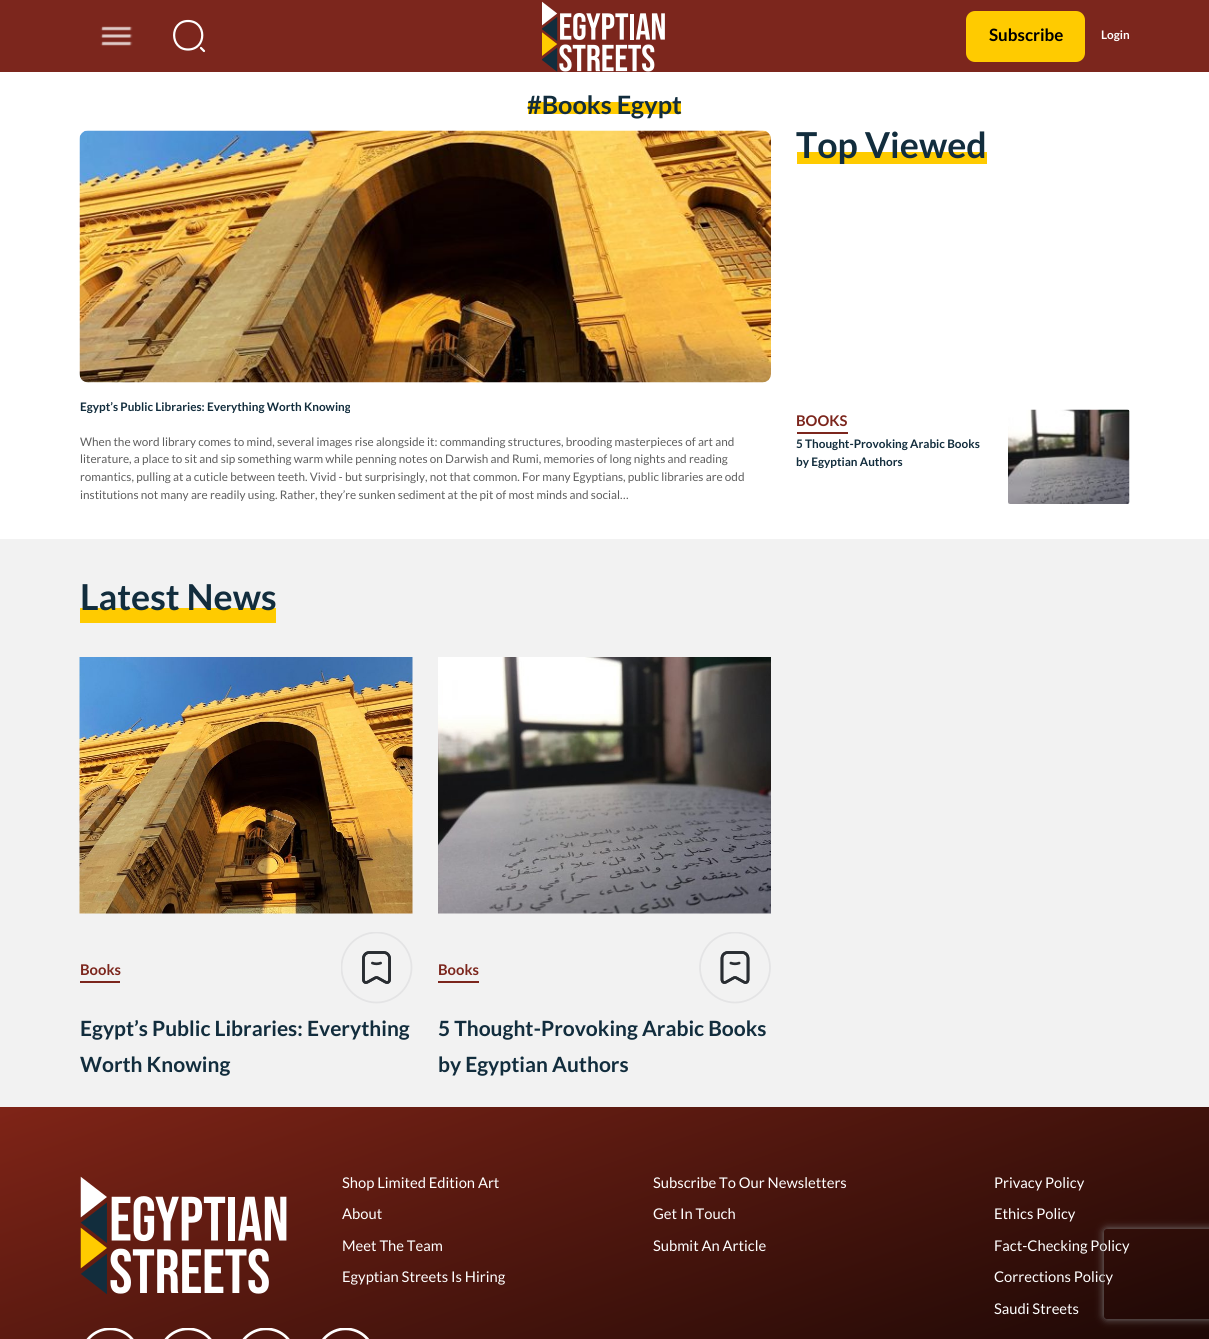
#include <cairo.h>
#include <math.h>
#include <stddef.h>

typedef struct { double x, y; const char *s; } line_t;

static void ink(cairo_t *ctx, unsigned color) {
    cairo_set_source_rgb(ctx, (color >> 16) / 255.0, (color >> 8 & 255) / 255.0, (color & 255) / 255.0);
}

static void round_path(cairo_t *ctx, double x, double y, double w, double h, double r) {
    cairo_new_sub_path(ctx);
    cairo_arc(ctx, x + w - r, y + h - r, r, 0, M_PI / 2);
    cairo_arc(ctx, x + r, y + h - r, r, M_PI / 2, M_PI);
    cairo_arc(ctx, x + r, y + r, r, M_PI, 1.5 * M_PI);
    cairo_arc(ctx, x + w - r, y + r, r, 1.5 * M_PI, 2 * M_PI);
    cairo_close_path(ctx);
}

static void blur_box(cairo_t *ctx, double x, double y, double w, double h, double r, double blur, double alpha) {
    cairo_push_group_with_content(ctx, CAIRO_CONTENT_ALPHA);
    cairo_set_operator(ctx, CAIRO_OPERATOR_SOURCE);
    for (int i = 15; i >= -15 && fmin(w, h) + blur * i / 3 > 0; i -= 2) {
        double e = blur * i / 6;
        cairo_set_source_rgba(ctx, 0, 0, 0, alpha * erfc((i - 1) / 8.5) / 2);
        round_path(ctx, x - e, y - e, w + 2 * e, h + 2 * e, fmax(0, fmin(r + e + blur * .6, fmin(w, h) / 2 + e)));
        cairo_fill(ctx);
    }
    cairo_pattern_t *soft = cairo_pop_group(ctx);
    cairo_mask(ctx, soft);
    cairo_pattern_destroy(soft);
}

static void paste(cairo_t *ctx, const char *path, double x, double y, double w, double h) {
    cairo_surface_t *image = cairo_image_surface_create_from_png(path);
    cairo_save(ctx);
    cairo_set_source_surface(ctx, image, x, y);
    cairo_rectangle(ctx, x, y, w, h);
    cairo_fill(ctx);
    cairo_restore(ctx);
    cairo_surface_destroy(image);
}

int main(void) {
    cairo_surface_t *surface = cairo_image_surface_create(CAIRO_FORMAT_RGB24, 1209, 1339);
    cairo_t *ctx = cairo_create(surface);
    cairo_font_options_t *options = cairo_font_options_create();
    cairo_font_options_set_hint_metrics(options, CAIRO_HINT_METRICS_OFF);
    cairo_font_options_set_hint_style(options, CAIRO_HINT_STYLE_NONE);
    cairo_set_font_options(ctx, options);
    cairo_set_miter_limit(ctx, 4);
    cairo_pattern_t *gradient;
    ink(ctx, 0xFFFFFF);
    cairo_paint(ctx);
    ink(ctx, 0x7C261D);
    cairo_rectangle(ctx, 0, 0, 1209, 72);
    cairo_fill(ctx);
    paste(ctx, "media/1.png", 100, 26, 33, 20);
    cairo_new_path(ctx);
    cairo_move_to(ctx, 188, 49.5);
    cairo_curve_to(ctx, 207, 49.5, 207, 21, 188, 21);
    cairo_curve_to(ctx, 169.5, 21, 169.5, 49.5, 188, 49.5);
    cairo_close_path(ctx);
    cairo_move_to(ctx, 204, 51);
    cairo_line_to(ctx, 201, 48);
    ink(ctx, 0xFFFFFF);
    cairo_set_line_width(ctx, 2.2);
    cairo_set_line_cap(ctx, CAIRO_LINE_CAP_ROUND);
    cairo_set_line_join(ctx, CAIRO_LINE_JOIN_ROUND);
    cairo_stroke(ctx);
    paste(ctx, "media/2.png", 542, 1, 123, 71);
    ink(ctx, 0xFFCB00);
    round_path(ctx, 966, 11, 119, 51, 9);
    cairo_fill(ctx);
    cairo_select_font_face(ctx, "Lato", CAIRO_FONT_SLANT_NORMAL, CAIRO_FONT_WEIGHT_BOLD);
    cairo_set_font_size(ctx, 17);
    ink(ctx, 0x000000);
    cairo_move_to(ctx, 989, 41);
    cairo_show_text(ctx, "Subscribe");
    cairo_set_font_size(ctx, 11.75);
    ink(ctx, 0xFFFFFF);
    cairo_move_to(ctx, 1101, 39);
    cairo_show_text(ctx, "Login");
    ink(ctx, 0xFFCB00);
    cairo_rectangle(ctx, 528, 102, 153, 12);
    cairo_fill(ctx);
    cairo_set_font_size(ctx, 25.25);
    ink(ctx, 0x122D3D);
    cairo_move_to(ctx, 527, 114);
    cairo_show_text(ctx, "#Books Egypt");
    paste(ctx, "media/3.png", 79, 130, 692, 253);
    cairo_save(ctx);
    cairo_rectangle(ctx, 80, 399, 270, 18);
    cairo_clip(ctx);
    cairo_set_font_size(ctx, 11.75);
    cairo_move_to(ctx, 80, 411);
    cairo_show_text(ctx, "Egypt’s Public Libraries: Everything Worth Knowing");
    cairo_restore(ctx);
    cairo_select_font_face(ctx, "Lato", CAIRO_FONT_SLANT_NORMAL, CAIRO_FONT_WEIGHT_NORMAL);
    cairo_set_font_size(ctx, 11.75);
    ink(ctx, 0x5E5E5E);
    {
        static const line_t items[] = {
            {80, 446, "When the word library comes to mind, several images rise alongside it: commanding structures, brooding masterpieces of art and"},
            {80, 463, "literature, a place to sit and sip something warm while penning notes on Darwish and Rumi, memories of long nights and reading"},
            {80, 481, "romantics, pulling at a cuticle between teeth. Vivid - but surprisingly, not that common. For many Egyptians, public libraries are odd"},
            {80, 499, "institutions not many are readily using. Rather, they’re sunken sediment at the pit of most minds and social…"},
        };
        for (size_t i = 0; i < sizeof items / sizeof *items; i++) {
            cairo_move_to(ctx, items[i].x, items[i].y);
            cairo_show_text(ctx, items[i].s);
        }
    }
    ink(ctx, 0xFFCB00);
    cairo_rectangle(ctx, 797, 152, 190, 12);
    cairo_fill(ctx);
    cairo_select_font_face(ctx, "Lato", CAIRO_FONT_SLANT_NORMAL, CAIRO_FONT_WEIGHT_BOLD);
    cairo_set_font_size(ctx, 35.75);
    ink(ctx, 0x122D3D);
    cairo_move_to(ctx, 796, 158);
    cairo_show_text(ctx, "Top Viewed");
    cairo_set_font_size(ctx, 14.75);
    ink(ctx, 0x7C261D);
    cairo_move_to(ctx, 796, 426);
    cairo_show_text(ctx, "BOOKS");
    cairo_rectangle(ctx, 797, 432, 51, 2);
    cairo_fill(ctx);
    cairo_set_font_size(ctx, 11.75);
    ink(ctx, 0x122D3D);
    cairo_move_to(ctx, 796, 448);
    cairo_show_text(ctx, "5 Thought-Provoking Arabic Books");
    cairo_move_to(ctx, 796, 466);
    cairo_show_text(ctx, "by Egyptian Authors");
    paste(ctx, "media/4.png", 1008, 409, 122, 95);
    ink(ctx, 0xF2F2F2);
    cairo_rectangle(ctx, 0, 539, 1209, 568);
    cairo_fill(ctx);
    ink(ctx, 0xFFCB00);
    cairo_rectangle(ctx, 80, 608, 196, 15);
    cairo_fill(ctx);
    cairo_set_font_size(ctx, 35.75);
    ink(ctx, 0x122D3D);
    cairo_move_to(ctx, 80, 610);
    cairo_show_text(ctx, "Latest News");
    paste(ctx, "media/5.png", 79, 657, 334, 257);
    cairo_set_font_size(ctx, 14.75);
    ink(ctx, 0x7C261D);
    cairo_move_to(ctx, 80, 975);
    cairo_show_text(ctx, "Books");
    cairo_rectangle(ctx, 80, 981, 40, 2);
    cairo_fill(ctx);
    paste(ctx, "media/6.png", 341, 932, 72, 72);
    cairo_set_font_size(ctx, 21);
    ink(ctx, 0x122D3D);
    cairo_move_to(ctx, 80, 1036);
    cairo_show_text(ctx, "Egypt’s Public Libraries: Everything");
    cairo_move_to(ctx, 80, 1072);
    cairo_show_text(ctx, "Worth Knowing");
    paste(ctx, "media/7.png", 438, 657, 333, 257);
    cairo_set_font_size(ctx, 14.75);
    ink(ctx, 0x7C261D);
    cairo_move_to(ctx, 438, 975);
    cairo_show_text(ctx, "Books");
    cairo_rectangle(ctx, 438, 981, 41, 2);
    cairo_fill(ctx);
    paste(ctx, "media/8.png", 699, 932, 72, 72);
    cairo_set_font_size(ctx, 21);
    ink(ctx, 0x122D3D);
    cairo_move_to(ctx, 438, 1036);
    cairo_show_text(ctx, "5 Thought-Provoking Arabic Books");
    cairo_move_to(ctx, 438, 1072);
    cairo_show_text(ctx, "by Egyptian Authors");
    gradient = cairo_pattern_create_linear(475, 943, 734, 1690);
    cairo_pattern_add_color_stop_rgba(gradient, 0, 0.498, 0.141, 0.09, 1);
    cairo_pattern_add_color_stop_rgba(gradient, 1, 0, 0, 0, 1);
    cairo_set_source(ctx, gradient);
    cairo_pattern_destroy(gradient);
    cairo_rectangle(ctx, 0, 1107, 1209, 232);
    cairo_fill(ctx);
    paste(ctx, "media/9.png", 80, 1176, 207, 119);
    paste(ctx, "media/10.png", 86, 1328, 48, 11);
    paste(ctx, "media/11.png", 164, 1328, 48, 11);
    paste(ctx, "media/12.png", 242, 1328, 48, 11);
    paste(ctx, "media/13.png", 322, 1328, 47, 11);
    cairo_select_font_face(ctx, "Lato", CAIRO_FONT_SLANT_NORMAL, CAIRO_FONT_WEIGHT_NORMAL);
    cairo_set_font_size(ctx, 14.75);
    ink(ctx, 0xFFFFFF);
    {
        static const line_t items[] = {
            {342, 1188, "Shop Limited Edition Art"},
            {342, 1219, "About"},
            {342, 1251, "Meet The Team"},
            {342, 1282, "Egyptian Streets Is Hiring"},
            {653, 1188, "Subscribe To Our Newsletters"},
            {653, 1219, "Get In Touch"},
            {653, 1251, "Submit An Article"},
            {994, 1188, "Privacy Policy"},
            {994, 1219, "Ethics Policy"},
            {994, 1251, "Fact-Checking Policy"},
            {994, 1282, "Corrections Policy"},
            {994, 1314, "Saudi Streets"},
        };
        for (size_t i = 0; i < sizeof items / sizeof *items; i++) {
            cairo_move_to(ctx, items[i].x, items[i].y);
            cairo_show_text(ctx, items[i].s);
        }
    }
    cairo_save(ctx);
    cairo_set_fill_rule(ctx, CAIRO_FILL_RULE_EVEN_ODD);
    cairo_new_path(ctx);
    cairo_move_to(ctx, 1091, 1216);
    cairo_line_to(ctx, 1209, 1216);
    cairo_line_to(ctx, 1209, 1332);
    cairo_line_to(ctx, 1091, 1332);
    cairo_close_path(ctx);
    cairo_move_to(ctx, 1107, 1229);
    cairo_line_to(ctx, 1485, 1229);
    cairo_curve_to(ctx, 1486.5, 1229, 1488, 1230.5, 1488, 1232);
    cairo_line_to(ctx, 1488, 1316);
    cairo_curve_to(ctx, 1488, 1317.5, 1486.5, 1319, 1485, 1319);
    cairo_line_to(ctx, 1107, 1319);
    cairo_curve_to(ctx, 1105.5, 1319, 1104, 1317.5, 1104, 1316);
    cairo_line_to(ctx, 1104, 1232);
    cairo_curve_to(ctx, 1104, 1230.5, 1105.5, 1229, 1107, 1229);
    cairo_close_path(ctx);
    cairo_clip(ctx);
    ink(ctx, 0x808080);
    blur_box(ctx, 1104, 1229, 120, 90, 3, 4, 1);
    cairo_restore(ctx);
    cairo_surface_write_to_png(surface, "image.png");
    cairo_font_options_destroy(options);
    cairo_destroy(ctx);
    cairo_surface_destroy(surface);
    return 0;
}
